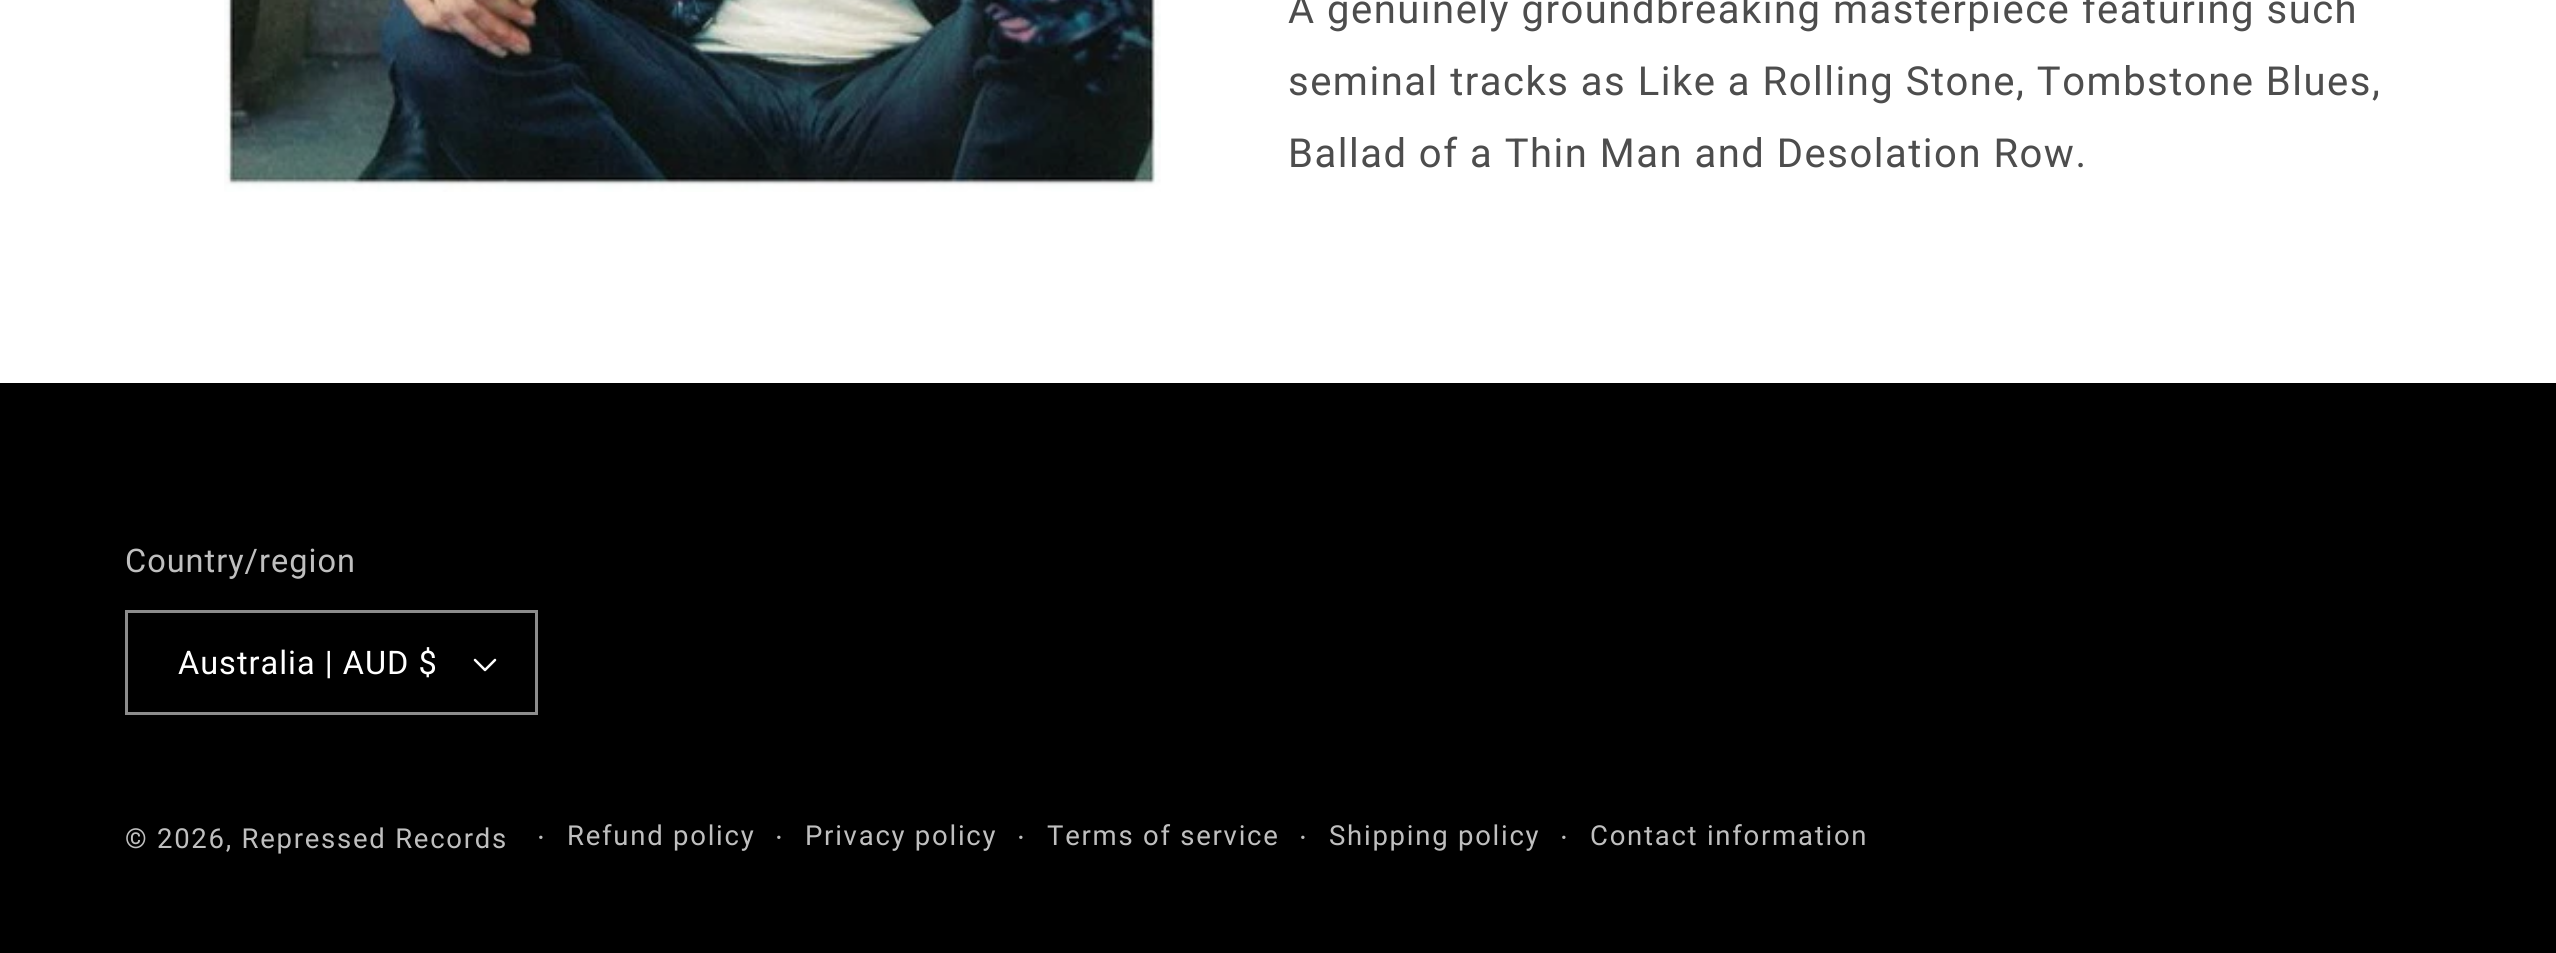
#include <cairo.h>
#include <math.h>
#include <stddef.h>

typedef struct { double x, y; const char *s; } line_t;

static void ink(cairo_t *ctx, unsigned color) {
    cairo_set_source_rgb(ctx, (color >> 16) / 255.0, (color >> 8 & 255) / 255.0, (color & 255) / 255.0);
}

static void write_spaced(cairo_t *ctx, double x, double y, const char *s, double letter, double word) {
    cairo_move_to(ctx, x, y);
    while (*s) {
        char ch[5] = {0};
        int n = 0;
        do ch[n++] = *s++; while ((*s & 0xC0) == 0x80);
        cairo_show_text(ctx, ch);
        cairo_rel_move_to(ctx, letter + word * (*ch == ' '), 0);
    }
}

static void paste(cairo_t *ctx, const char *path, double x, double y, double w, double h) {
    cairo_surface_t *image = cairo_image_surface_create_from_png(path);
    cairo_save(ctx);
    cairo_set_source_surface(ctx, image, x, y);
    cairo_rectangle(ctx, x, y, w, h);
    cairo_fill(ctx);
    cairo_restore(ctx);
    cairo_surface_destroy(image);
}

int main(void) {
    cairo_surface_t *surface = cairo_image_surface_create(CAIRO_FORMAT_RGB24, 2556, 953);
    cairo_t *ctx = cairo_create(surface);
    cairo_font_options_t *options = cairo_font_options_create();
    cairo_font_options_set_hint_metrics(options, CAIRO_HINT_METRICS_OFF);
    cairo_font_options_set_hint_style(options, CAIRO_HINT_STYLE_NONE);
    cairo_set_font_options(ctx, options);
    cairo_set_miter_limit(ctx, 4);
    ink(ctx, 0xFFFFFF);
    cairo_paint(ctx);
    paste(ctx, "media/1.png", 224, 0, 937, 192);
    cairo_select_font_face(ctx, "Roboto", CAIRO_FONT_SLANT_NORMAL, CAIRO_FONT_WEIGHT_NORMAL);
    cairo_set_font_size(ctx, 40);
    ink(ctx, 0x4D4D4D);
    {
        static const line_t items[] = {
            {1288, 23, "A genuinely groundbreaking masterpiece featuring such"},
            {1288, 95, "seminal tracks as Like a Rolling Stone, Tombstone Blues,"},
            {1288, 167, "Ballad of a Thin Man and Desolation Row."},
        };
        for (size_t i = 0; i < sizeof items / sizeof *items; i++) {
            write_spaced(ctx, items[i].x, items[i].y, items[i].s, 1.5, 0);
        }
    }
    ink(ctx, 0x000000);
    cairo_rectangle(ctx, 0, 383, 2556, 570);
    cairo_fill(ctx);
    cairo_set_font_size(ctx, 32.5);
    ink(ctx, 0xBFBFBF);
    write_spaced(ctx, 125, 572, "Country/region", 1, 0);
    paste(ctx, "media/2.png", 473, 658, 24, 14);
    cairo_rectangle(ctx, 126.5, 611.5, 410, 102);
    ink(ctx, 0x8C8C8C);
    cairo_set_line_width(ctx, 3);
    cairo_stroke(ctx);
    ink(ctx, 0xFFFFFF);
    write_spaced(ctx, 178, 674, "Australia | AUD $", 1, 0);
    cairo_set_font_size(ctx, 27.5);
    ink(ctx, 0xBFBFBF);
    write_spaced(ctx, 125, 848, "© 2026, Repressed Records", 1.75, 0);
    cairo_set_font_size(ctx, 30);
    write_spaced(ctx, 537, 848, "·", 1.75, 0);
    cairo_set_font_size(ctx, 27.5);
    write_spaced(ctx, 567, 845, "Refund policy", 1.75, 0);
    cairo_set_font_size(ctx, 30);
    write_spaced(ctx, 775, 848, "·", 1.75, 0);
    cairo_set_font_size(ctx, 27.5);
    write_spaced(ctx, 805, 845, "Privacy policy", 1.75, 0);
    cairo_set_font_size(ctx, 30);
    write_spaced(ctx, 1017, 848, "·", 1.75, 0);
    cairo_set_font_size(ctx, 27.5);
    write_spaced(ctx, 1047, 845, "Terms of service", 1.75, 0);
    cairo_set_font_size(ctx, 30);
    write_spaced(ctx, 1299, 848, "·", 1.75, 0);
    cairo_set_font_size(ctx, 27.5);
    write_spaced(ctx, 1329, 845, "Shipping policy", 1.75, 0);
    cairo_set_font_size(ctx, 30);
    write_spaced(ctx, 1560, 848, "·", 1.75, 0);
    cairo_set_font_size(ctx, 27.5);
    write_spaced(ctx, 1590, 845, "Contact information", 1.75, 0);
    cairo_surface_write_to_png(surface, "image.png");
    cairo_font_options_destroy(options);
    cairo_destroy(ctx);
    cairo_surface_destroy(surface);
    return 0;
}
